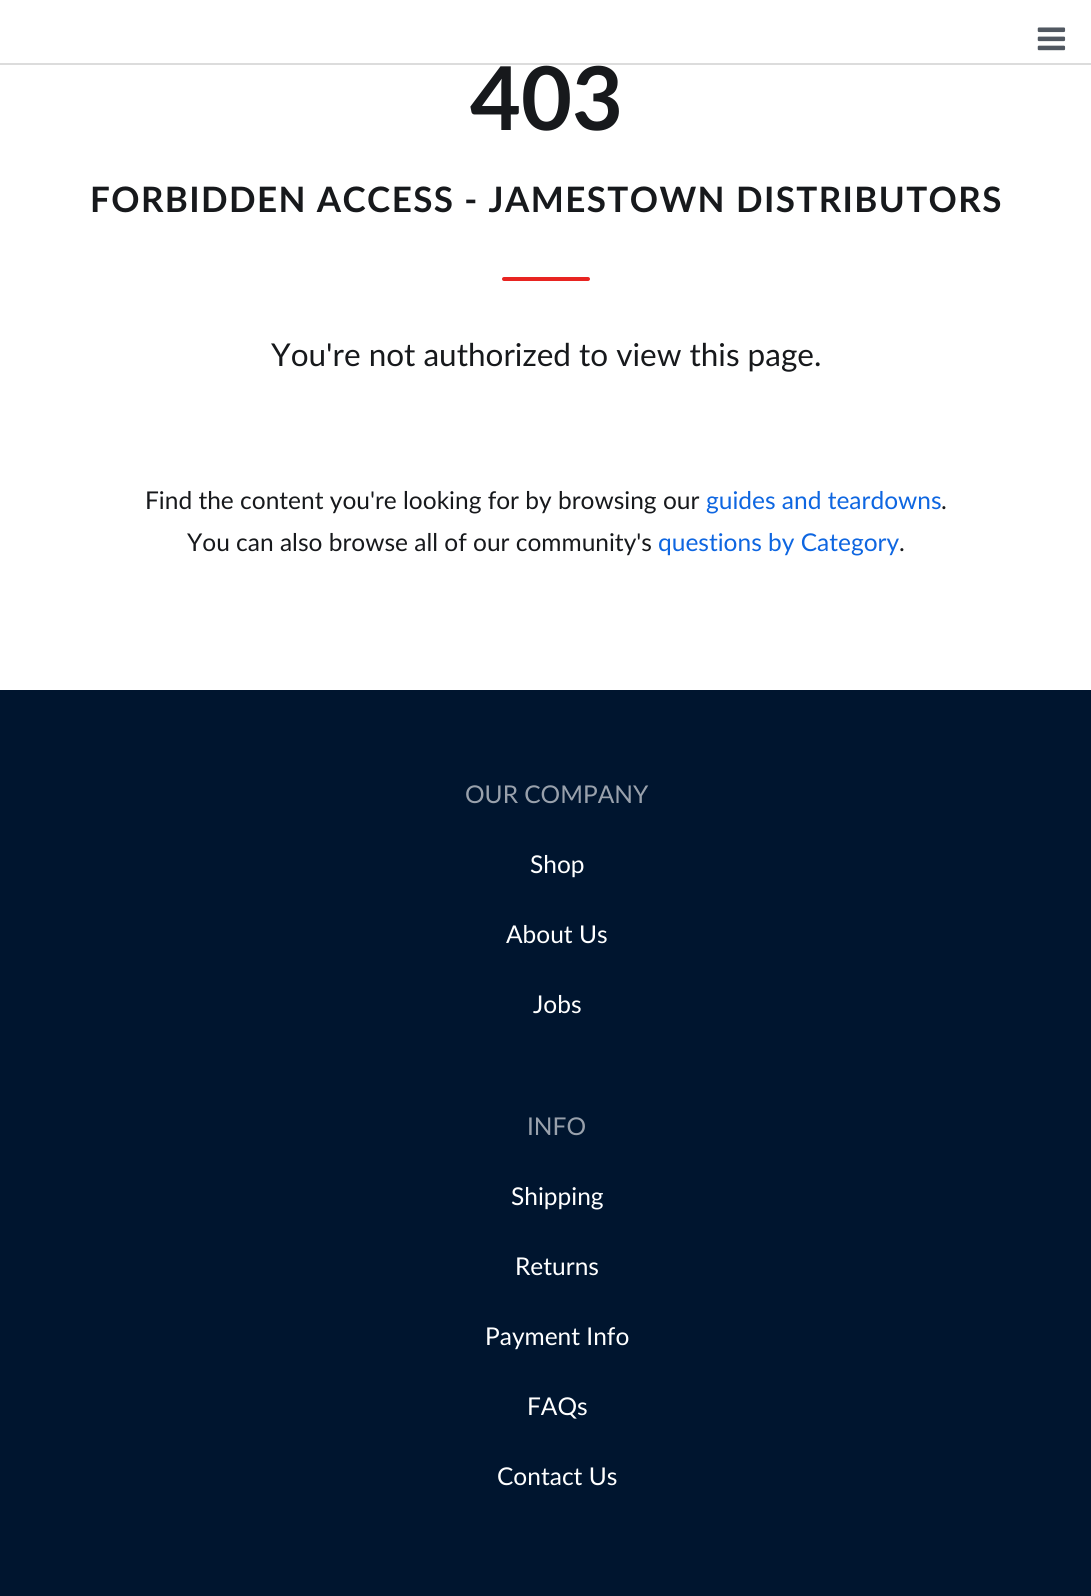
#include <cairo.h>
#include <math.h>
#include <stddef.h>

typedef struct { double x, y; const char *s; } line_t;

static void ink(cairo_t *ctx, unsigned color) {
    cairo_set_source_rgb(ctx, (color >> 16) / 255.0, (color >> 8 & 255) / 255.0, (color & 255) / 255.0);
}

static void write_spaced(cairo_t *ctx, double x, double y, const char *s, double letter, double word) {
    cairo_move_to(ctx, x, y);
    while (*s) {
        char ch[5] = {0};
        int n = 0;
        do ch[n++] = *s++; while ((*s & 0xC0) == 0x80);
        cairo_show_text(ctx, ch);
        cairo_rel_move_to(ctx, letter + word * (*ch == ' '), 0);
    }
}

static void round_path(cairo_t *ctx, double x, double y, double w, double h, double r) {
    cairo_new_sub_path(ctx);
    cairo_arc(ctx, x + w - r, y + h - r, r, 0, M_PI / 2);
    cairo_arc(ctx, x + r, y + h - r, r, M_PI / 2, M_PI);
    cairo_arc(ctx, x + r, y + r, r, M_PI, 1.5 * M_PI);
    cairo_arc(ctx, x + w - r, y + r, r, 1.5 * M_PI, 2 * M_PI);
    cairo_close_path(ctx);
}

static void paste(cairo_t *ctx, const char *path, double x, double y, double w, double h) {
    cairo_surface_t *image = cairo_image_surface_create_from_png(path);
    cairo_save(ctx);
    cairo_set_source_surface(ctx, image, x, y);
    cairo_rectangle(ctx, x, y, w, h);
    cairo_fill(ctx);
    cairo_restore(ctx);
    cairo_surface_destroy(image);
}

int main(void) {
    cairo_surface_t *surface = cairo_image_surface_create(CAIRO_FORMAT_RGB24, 1091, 1596);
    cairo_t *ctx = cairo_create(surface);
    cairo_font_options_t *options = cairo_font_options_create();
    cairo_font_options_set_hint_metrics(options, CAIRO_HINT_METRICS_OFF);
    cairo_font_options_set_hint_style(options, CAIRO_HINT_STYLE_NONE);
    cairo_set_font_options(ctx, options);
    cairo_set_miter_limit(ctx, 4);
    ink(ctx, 0xFFFFFF);
    cairo_paint(ctx);
    ink(ctx, 0xDCDCDC);
    cairo_rectangle(ctx, 0, 63, 1091, 2);
    cairo_fill(ctx);
    paste(ctx, "media/1.png", 1037, 27, 29, 24);
    cairo_select_font_face(ctx, "Lato", CAIRO_FONT_SLANT_NORMAL, CAIRO_FONT_WEIGHT_BOLD);
    cairo_set_font_size(ctx, 88);
    ink(ctx, 0x17191C);
    cairo_move_to(ctx, 470, 130);
    cairo_show_text(ctx, "403");
    cairo_set_font_size(ctx, 35);
    write_spaced(ctx, 90, 212, "FORBIDDEN ACCESS - JAMESTOWN DISTRIBUTORS", 1.4, 0);
    ink(ctx, 0xE82421);
    round_path(ctx, 502, 277, 88, 4, 2);
    cairo_fill(ctx);
    cairo_select_font_face(ctx, "Lato", CAIRO_FONT_SLANT_NORMAL, CAIRO_FONT_WEIGHT_NORMAL);
    cairo_set_font_size(ctx, 31.5);
    ink(ctx, 0x17191C);
    cairo_move_to(ctx, 271, 366);
    cairo_show_text(ctx, "You're not authorized to view this page.");
    cairo_set_font_size(ctx, 24.5);
    cairo_move_to(ctx, 145, 509);
    cairo_show_text(ctx, "Find the content you're looking for by browsing our");
    ink(ctx, 0x0E66E1);
    cairo_move_to(ctx, 706, 509);
    cairo_show_text(ctx, "guides and teardowns");
    ink(ctx, 0x17191C);
    cairo_move_to(ctx, 941, 509);
    cairo_show_text(ctx, ".");
    cairo_move_to(ctx, 187, 551);
    cairo_show_text(ctx, "You can also browse all of our community's");
    ink(ctx, 0x0E66E1);
    cairo_move_to(ctx, 658, 551);
    cairo_show_text(ctx, "questions by Category");
    ink(ctx, 0x17191C);
    cairo_move_to(ctx, 899, 551);
    cairo_show_text(ctx, ".");
    ink(ctx, 0x00152F);
    cairo_rectangle(ctx, 0, 690, 1091, 906);
    cairo_fill(ctx);
    ink(ctx, 0x99A1AC);
    cairo_move_to(ctx, 465, 803);
    cairo_show_text(ctx, "OUR COMPANY");
    ink(ctx, 0xFFFFFF);
    {
        static const line_t items[] = {
            {530, 873, "Shop"},
            {506, 943, "About Us"},
            {533, 1013, "Jobs"},
        };
        for (size_t i = 0; i < sizeof items / sizeof *items; i++) {
            cairo_move_to(ctx, items[i].x, items[i].y);
            cairo_show_text(ctx, items[i].s);
        }
    }
    ink(ctx, 0x99A1AC);
    cairo_move_to(ctx, 527, 1135);
    cairo_show_text(ctx, "INFO");
    ink(ctx, 0xFFFFFF);
    {
        static const line_t items[] = {
            {511, 1205, "Shipping"},
            {515, 1275, "Returns"},
            {485, 1345, "Payment Info"},
            {527, 1415, "FAQs"},
            {497, 1485, "Contact Us"},
        };
        for (size_t i = 0; i < sizeof items / sizeof *items; i++) {
            cairo_move_to(ctx, items[i].x, items[i].y);
            cairo_show_text(ctx, items[i].s);
        }
    }
    cairo_surface_write_to_png(surface, "image.png");
    cairo_font_options_destroy(options);
    cairo_destroy(ctx);
    cairo_surface_destroy(surface);
    return 0;
}
